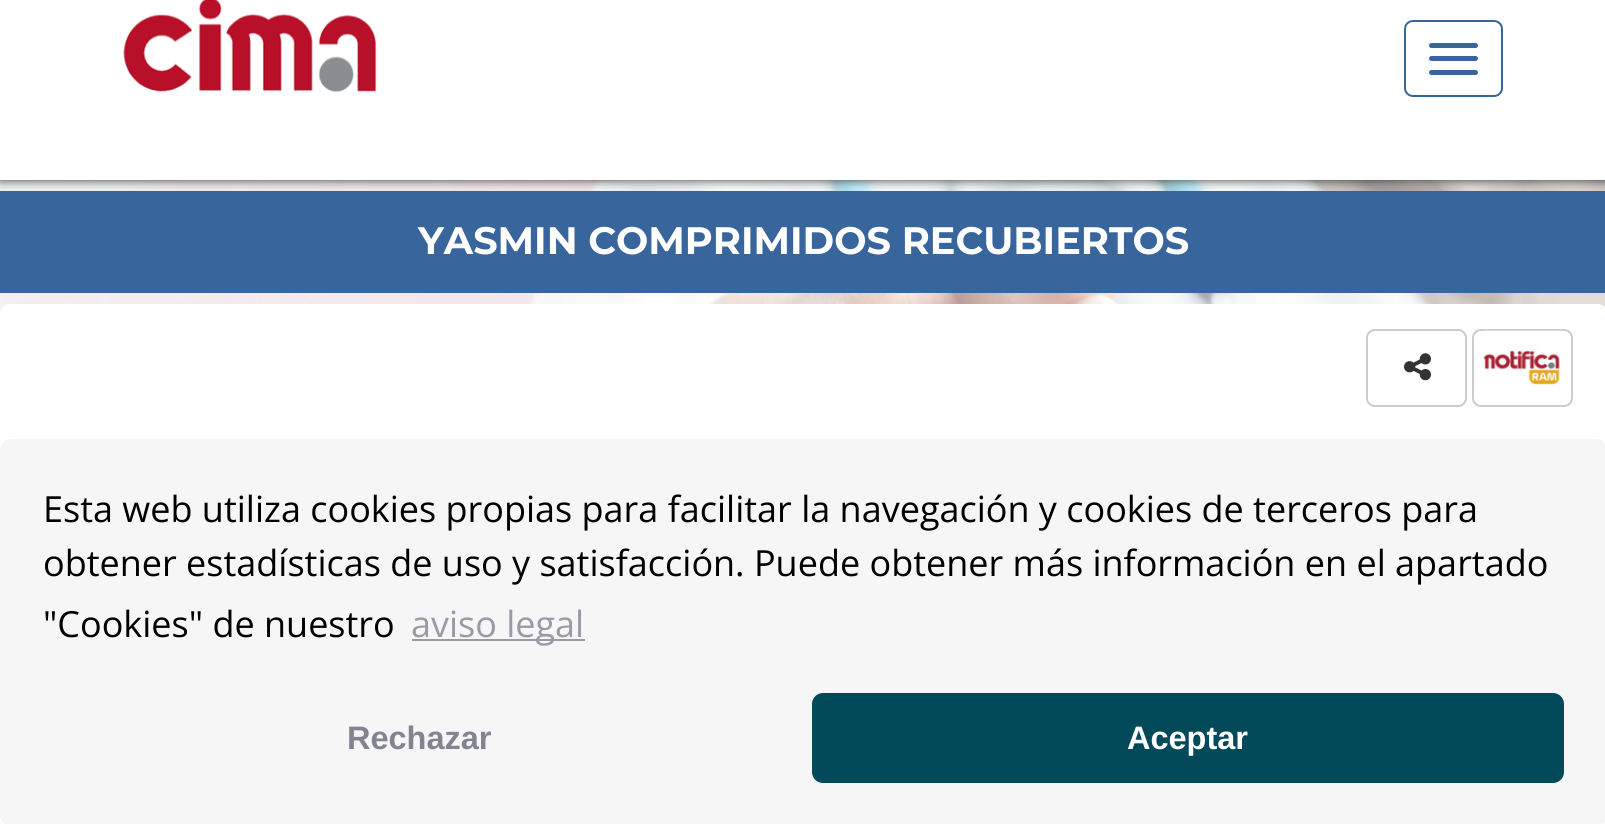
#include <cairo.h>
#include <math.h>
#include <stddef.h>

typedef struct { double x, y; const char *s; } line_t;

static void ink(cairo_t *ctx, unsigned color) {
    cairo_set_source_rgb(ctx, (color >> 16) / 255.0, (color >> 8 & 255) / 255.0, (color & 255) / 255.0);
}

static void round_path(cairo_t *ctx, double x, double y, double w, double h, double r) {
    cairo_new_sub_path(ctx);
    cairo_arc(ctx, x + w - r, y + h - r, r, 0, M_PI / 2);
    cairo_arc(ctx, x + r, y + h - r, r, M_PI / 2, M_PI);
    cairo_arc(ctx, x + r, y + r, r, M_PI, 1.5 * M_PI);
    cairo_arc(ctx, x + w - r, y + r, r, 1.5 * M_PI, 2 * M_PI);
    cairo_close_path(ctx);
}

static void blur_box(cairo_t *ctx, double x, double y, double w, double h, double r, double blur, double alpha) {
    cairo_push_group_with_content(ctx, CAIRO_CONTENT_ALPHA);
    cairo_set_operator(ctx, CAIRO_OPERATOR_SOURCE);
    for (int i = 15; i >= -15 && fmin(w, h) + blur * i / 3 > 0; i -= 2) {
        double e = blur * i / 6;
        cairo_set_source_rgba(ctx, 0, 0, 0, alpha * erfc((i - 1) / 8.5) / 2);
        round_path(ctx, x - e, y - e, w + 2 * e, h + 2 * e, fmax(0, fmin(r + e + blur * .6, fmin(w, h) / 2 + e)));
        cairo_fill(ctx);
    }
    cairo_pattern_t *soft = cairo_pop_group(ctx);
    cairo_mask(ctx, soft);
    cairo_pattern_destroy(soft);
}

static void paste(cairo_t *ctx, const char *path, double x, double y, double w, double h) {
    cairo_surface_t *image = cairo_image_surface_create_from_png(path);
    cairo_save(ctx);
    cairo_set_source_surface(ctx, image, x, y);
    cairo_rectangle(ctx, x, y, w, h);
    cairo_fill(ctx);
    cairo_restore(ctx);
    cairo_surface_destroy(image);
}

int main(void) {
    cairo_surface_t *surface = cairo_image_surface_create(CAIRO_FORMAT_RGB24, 1605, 824);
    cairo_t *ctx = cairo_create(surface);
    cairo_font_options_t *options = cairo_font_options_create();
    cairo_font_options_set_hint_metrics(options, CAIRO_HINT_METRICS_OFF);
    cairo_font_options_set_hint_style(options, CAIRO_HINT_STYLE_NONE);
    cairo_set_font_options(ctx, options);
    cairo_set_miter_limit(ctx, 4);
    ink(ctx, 0xFFFFFF);
    cairo_paint(ctx);
    paste(ctx, "media/1.png", 0, 180, 1605, 133);
    ink(ctx, 0x38659C);
    cairo_rectangle(ctx, 0, 191, 1605, 102);
    cairo_fill(ctx);
    ink(ctx, 0x333333);
    blur_box(ctx, 0, 0, 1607, 180, 0, 5.5, 1);
    ink(ctx, 0xFFFFFF);
    cairo_rectangle(ctx, 0, 0, 1605, 180);
    cairo_fill(ctx);
    paste(ctx, "media/2.png", 123, 0, 254, 92);
    round_path(ctx, 1405, 21, 97, 75, 8);
    ink(ctx, 0x38659C);
    cairo_stroke(ctx);
    round_path(ctx, 1429, 43, 49, 5, 2.5);
    cairo_fill(ctx);
    round_path(ctx, 1429, 56, 49, 5, 2.5);
    cairo_fill(ctx);
    round_path(ctx, 1429, 70, 49, 5, 2.5);
    cairo_fill(ctx);
    cairo_select_font_face(ctx, "Montserrat", CAIRO_FONT_SLANT_NORMAL, CAIRO_FONT_WEIGHT_BOLD);
    cairo_set_font_size(ctx, 38.25);
    ink(ctx, 0xFFFFFF);
    cairo_move_to(ctx, 418, 254);
    cairo_show_text(ctx, "YASMIN COMPRIMIDOS RECUBIERTOS");
    round_path(ctx, 0, 304, 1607, 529, 9);
    cairo_fill(ctx);
    round_path(ctx, 1367, 330, 99, 76, 8);
    ink(ctx, 0xCCCCCC);
    cairo_stroke(ctx);
    paste(ctx, "media/3.png", 1404, 353, 27, 28);
    round_path(ctx, 1473, 330, 99, 76, 8);
    cairo_stroke(ctx);
    paste(ctx, "media/4.png", 1483, 330, 79, 58);
    ink(ctx, 0xF6F6F6);
    round_path(ctx, 0, 439, 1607, 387, 11);
    cairo_fill(ctx);
    cairo_select_font_face(ctx, "Open Sans", CAIRO_FONT_SLANT_NORMAL, CAIRO_FONT_WEIGHT_NORMAL);
    cairo_set_font_size(ctx, 36);
    ink(ctx, 0x000000);
    {
        static const line_t items[] = {
            {43, 522, "Esta web utiliza cookies propias para facilitar la navegación y cookies de terceros para"},
            {43, 576, "obtener estadísticas de uso y satisfacción. Puede obtener más información en el apartado"},
            {43, 637, "\"Cookies\" de nuestro"},
        };
        for (size_t i = 0; i < sizeof items / sizeof *items; i++) {
            cairo_move_to(ctx, items[i].x, items[i].y);
            cairo_show_text(ctx, items[i].s);
        }
    }
    ink(ctx, 0x9A9AA5);
    cairo_rectangle(ctx, 412, 639, 173, 2);
    cairo_fill(ctx);
    cairo_move_to(ctx, 411, 637);
    cairo_show_text(ctx, "aviso legal");
    cairo_select_font_face(ctx, "Liberation Sans", CAIRO_FONT_SLANT_NORMAL, CAIRO_FONT_WEIGHT_BOLD);
    cairo_set_font_size(ctx, 32.5);
    ink(ctx, 0x838391);
    cairo_move_to(ctx, 347, 749);
    cairo_show_text(ctx, "Rechazar");
    ink(ctx, 0x024959);
    round_path(ctx, 812, 693, 752, 90, 11);
    cairo_fill(ctx);
    ink(ctx, 0xFFFFFF);
    cairo_move_to(ctx, 1127, 749);
    cairo_show_text(ctx, "Aceptar");
    cairo_surface_write_to_png(surface, "image.png");
    cairo_font_options_destroy(options);
    cairo_destroy(ctx);
    cairo_surface_destroy(surface);
    return 0;
}
